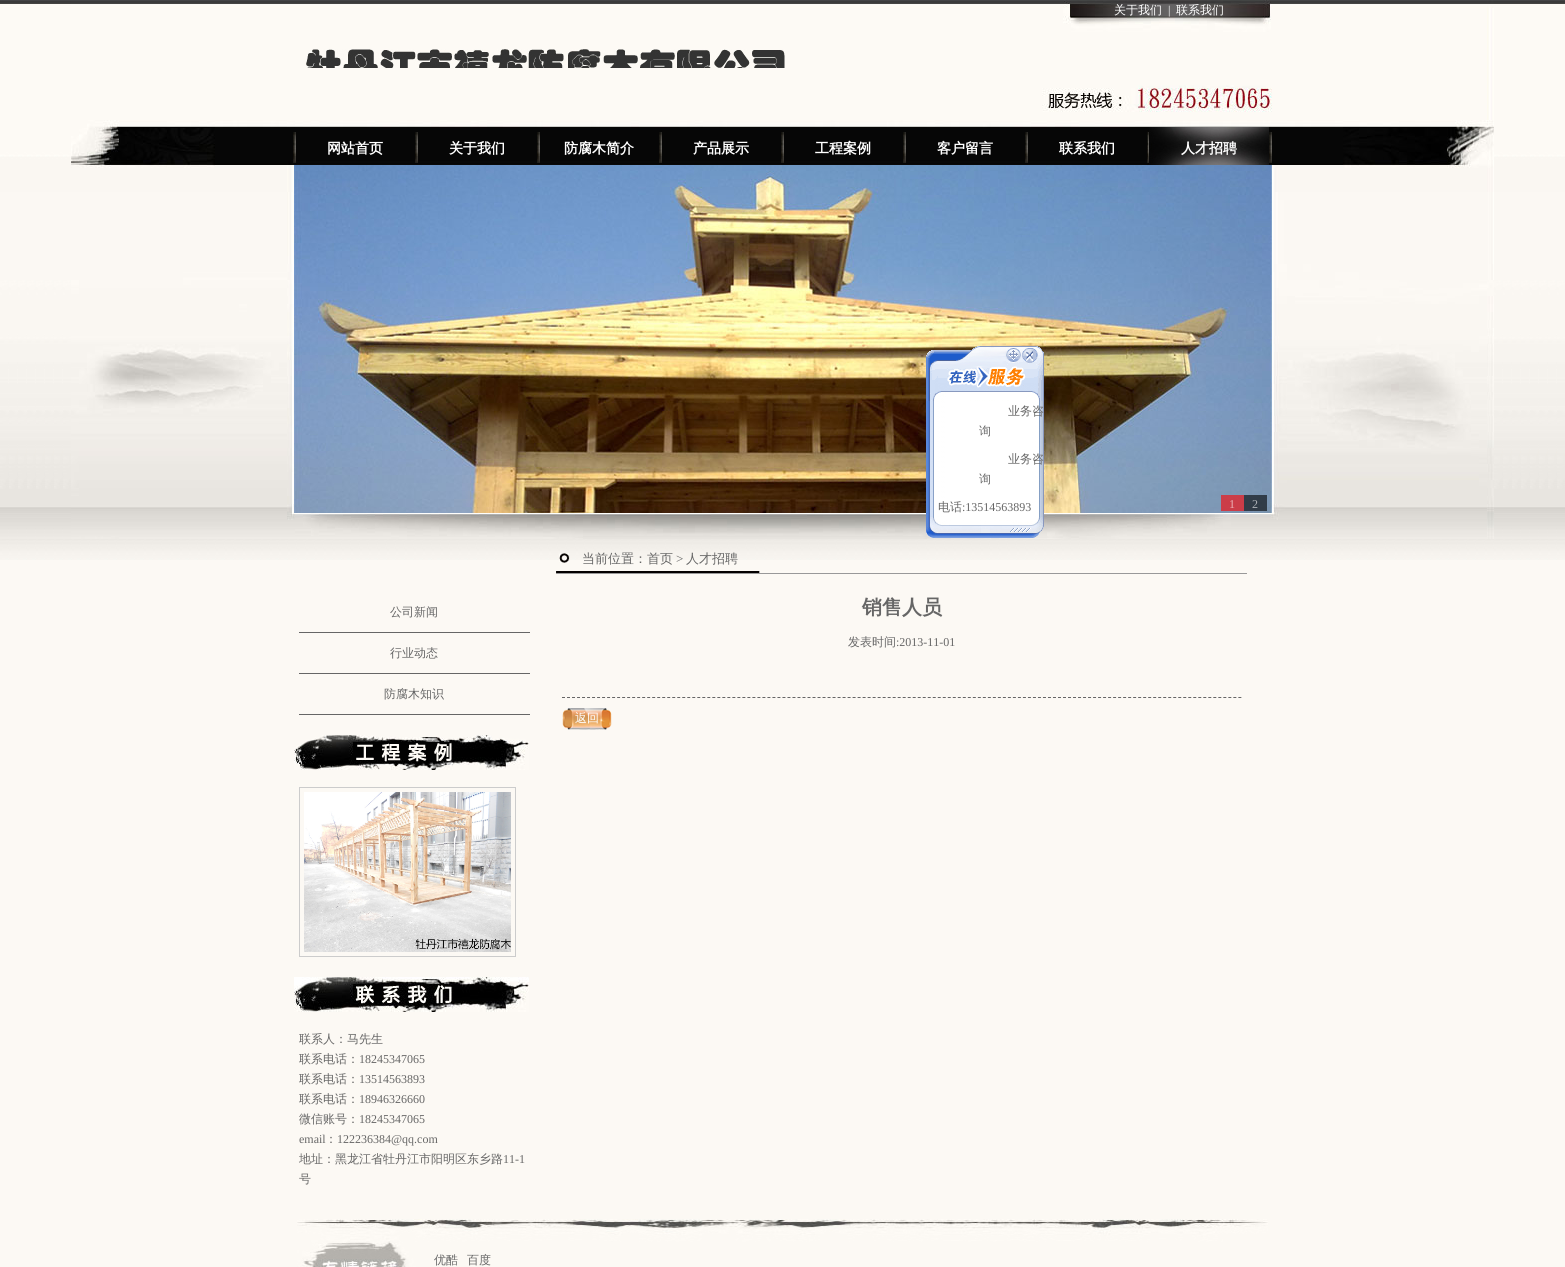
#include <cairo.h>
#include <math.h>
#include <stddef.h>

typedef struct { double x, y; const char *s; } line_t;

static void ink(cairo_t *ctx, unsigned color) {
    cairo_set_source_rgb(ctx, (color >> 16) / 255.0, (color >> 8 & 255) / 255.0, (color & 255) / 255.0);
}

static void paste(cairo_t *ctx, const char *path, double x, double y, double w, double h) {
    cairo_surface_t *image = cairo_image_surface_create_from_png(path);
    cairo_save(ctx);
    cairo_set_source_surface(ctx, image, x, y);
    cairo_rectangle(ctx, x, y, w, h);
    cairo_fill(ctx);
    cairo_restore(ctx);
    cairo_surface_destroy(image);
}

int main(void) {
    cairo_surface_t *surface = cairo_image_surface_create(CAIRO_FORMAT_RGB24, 1565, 1267);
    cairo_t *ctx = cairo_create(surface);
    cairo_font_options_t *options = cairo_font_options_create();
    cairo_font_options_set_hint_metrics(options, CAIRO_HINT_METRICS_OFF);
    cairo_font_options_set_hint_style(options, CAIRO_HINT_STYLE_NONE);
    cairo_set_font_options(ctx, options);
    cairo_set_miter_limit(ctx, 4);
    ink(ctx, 0xFCF9F4);
    cairo_paint(ctx);
    paste(ctx, "media/1.png", 0, 0, 1565, 539);
    paste(ctx, "media/2.png", 71, 0, 1423, 539);
    cairo_select_font_face(ctx, "WenQuanYi Zen Hei Medium", CAIRO_FONT_SLANT_NORMAL, CAIRO_FONT_WEIGHT_NORMAL);
    cairo_set_font_size(ctx, 12);
    ink(ctx, 0xFFFFFF);
    cairo_move_to(ctx, 1114, 14);
    cairo_show_text(ctx, "关于我们");
    cairo_select_font_face(ctx, "Liberation Serif", CAIRO_FONT_SLANT_NORMAL, CAIRO_FONT_WEIGHT_NORMAL);
    cairo_move_to(ctx, 1168, 14);
    cairo_show_text(ctx, "|");
    cairo_select_font_face(ctx, "WenQuanYi Zen Hei Medium", CAIRO_FONT_SLANT_NORMAL, CAIRO_FONT_WEIGHT_NORMAL);
    cairo_move_to(ctx, 1176, 14);
    cairo_show_text(ctx, "联系我们");
    paste(ctx, "media/3.png", 1042, 85, 230, 27);
    paste(ctx, "media/4.png", 306, 49, 479, 19);
    paste(ctx, "media/5.png", 293, 132, 3, 31);
    cairo_select_font_face(ctx, "WenQuanYi Zen Hei", CAIRO_FONT_SLANT_NORMAL, CAIRO_FONT_WEIGHT_BOLD);
    cairo_set_font_size(ctx, 14);
    cairo_move_to(ctx, 327, 153);
    cairo_show_text(ctx, "网站首页");
    paste(ctx, "media/5.png", 415, 132, 3, 31);
    cairo_move_to(ctx, 449, 153);
    cairo_show_text(ctx, "关于我们");
    paste(ctx, "media/5.png", 537, 132, 3, 31);
    cairo_move_to(ctx, 564, 153);
    cairo_show_text(ctx, "防腐木简介");
    paste(ctx, "media/6.png", 659, 132, 3, 31);
    cairo_move_to(ctx, 693, 153);
    cairo_show_text(ctx, "产品展示");
    paste(ctx, "media/6.png", 781, 132, 3, 31);
    cairo_move_to(ctx, 815, 153);
    cairo_show_text(ctx, "工程案例");
    paste(ctx, "media/5.png", 903, 132, 3, 31);
    cairo_move_to(ctx, 937, 153);
    cairo_show_text(ctx, "客户留言");
    paste(ctx, "media/5.png", 1025, 132, 3, 31);
    cairo_move_to(ctx, 1059, 153);
    cairo_show_text(ctx, "联系我们");
    paste(ctx, "media/7.png", 1147, 127, 122, 38);
    cairo_move_to(ctx, 1181, 153);
    cairo_show_text(ctx, "人才招聘");
    paste(ctx, "media/6.png", 1269, 132, 3, 31);
    paste(ctx, "media/8.png", 294, 165, 978, 348);
    cairo_set_source_rgba(ctx, 1, 0, 0, 0.6);
    cairo_rectangle(ctx, 1221, 495, 23, 16);
    cairo_fill(ctx);
    cairo_select_font_face(ctx, "Liberation Serif", CAIRO_FONT_SLANT_NORMAL, CAIRO_FONT_WEIGHT_NORMAL);
    cairo_set_font_size(ctx, 12);
    ink(ctx, 0xEAB1B6);
    cairo_move_to(ctx, 1229, 508);
    cairo_show_text(ctx, "1");
    cairo_set_source_rgba(ctx, 0, 0, 0, 0.6);
    cairo_rectangle(ctx, 1244, 495, 23, 16);
    cairo_fill(ctx);
    ink(ctx, 0xADB1B6);
    cairo_move_to(ctx, 1252, 508);
    cairo_show_text(ctx, "2");
    paste(ctx, "media/9.png", 926, 346, 118, 55);
    paste(ctx, "media/10.png", 926, 401, 118, 116);
    cairo_select_font_face(ctx, "WenQuanYi Zen Hei Medium", CAIRO_FONT_SLANT_NORMAL, CAIRO_FONT_WEIGHT_NORMAL);
    ink(ctx, 0x666666);
    {
        static const line_t items[] = {
            {1008, 415, "业务咨"},
            {979, 435, "询"},
            {1008, 463, "业务咨"},
            {979, 483, "询"},
            {938, 511, "电话"},
        };
        for (size_t i = 0; i < sizeof items / sizeof *items; i++) {
            cairo_move_to(ctx, items[i].x, items[i].y);
            cairo_show_text(ctx, items[i].s);
        }
    }
    cairo_select_font_face(ctx, "Liberation Serif", CAIRO_FONT_SLANT_NORMAL, CAIRO_FONT_WEIGHT_NORMAL);
    cairo_move_to(ctx, 962, 511);
    cairo_show_text(ctx, ":13514563893");
    paste(ctx, "media/11.png", 926, 517, 118, 21);
    paste(ctx, "media/12.png", 0, 539, 1565, 21);
    cairo_rectangle(ctx, 299, 632, 231, 1);
    cairo_fill(ctx);
    cairo_select_font_face(ctx, "WenQuanYi Zen Hei Medium", CAIRO_FONT_SLANT_NORMAL, CAIRO_FONT_WEIGHT_NORMAL);
    cairo_move_to(ctx, 390, 616);
    cairo_show_text(ctx, "公司新闻");
    cairo_rectangle(ctx, 299, 673, 231, 1);
    cairo_fill(ctx);
    cairo_move_to(ctx, 390, 657);
    cairo_show_text(ctx, "行业动态");
    cairo_rectangle(ctx, 299, 714, 231, 1);
    cairo_fill(ctx);
    cairo_move_to(ctx, 384, 698);
    cairo_show_text(ctx, "防腐木知识");
    paste(ctx, "media/13.png", 294, 735, 235, 35);
    cairo_rectangle(ctx, 299.5, 787.5, 216, 169);
    ink(ctx, 0xCCCCCC);
    cairo_set_line_width(ctx, 1);
    cairo_stroke(ctx);
    paste(ctx, "media/14.png", 304, 792, 207, 160);
    paste(ctx, "media/15.png", 294, 977, 235, 35);
    ink(ctx, 0x666666);
    cairo_move_to(ctx, 299, 1043);
    cairo_show_text(ctx, "联系人：马先生");
    cairo_move_to(ctx, 299, 1063);
    cairo_show_text(ctx, "联系电话：");
    cairo_select_font_face(ctx, "Liberation Serif", CAIRO_FONT_SLANT_NORMAL, CAIRO_FONT_WEIGHT_NORMAL);
    cairo_move_to(ctx, 359, 1063);
    cairo_show_text(ctx, "18245347065");
    cairo_select_font_face(ctx, "WenQuanYi Zen Hei Medium", CAIRO_FONT_SLANT_NORMAL, CAIRO_FONT_WEIGHT_NORMAL);
    cairo_move_to(ctx, 299, 1083);
    cairo_show_text(ctx, "联系电话：");
    cairo_select_font_face(ctx, "Liberation Serif", CAIRO_FONT_SLANT_NORMAL, CAIRO_FONT_WEIGHT_NORMAL);
    cairo_move_to(ctx, 359, 1083);
    cairo_show_text(ctx, "13514563893");
    cairo_select_font_face(ctx, "WenQuanYi Zen Hei Medium", CAIRO_FONT_SLANT_NORMAL, CAIRO_FONT_WEIGHT_NORMAL);
    cairo_move_to(ctx, 299, 1103);
    cairo_show_text(ctx, "联系电话：");
    cairo_select_font_face(ctx, "Liberation Serif", CAIRO_FONT_SLANT_NORMAL, CAIRO_FONT_WEIGHT_NORMAL);
    cairo_move_to(ctx, 359, 1103);
    cairo_show_text(ctx, "18946326660");
    cairo_select_font_face(ctx, "WenQuanYi Zen Hei Medium", CAIRO_FONT_SLANT_NORMAL, CAIRO_FONT_WEIGHT_NORMAL);
    cairo_move_to(ctx, 299, 1123);
    cairo_show_text(ctx, "微信账号：");
    cairo_select_font_face(ctx, "Liberation Serif", CAIRO_FONT_SLANT_NORMAL, CAIRO_FONT_WEIGHT_NORMAL);
    cairo_move_to(ctx, 359, 1123);
    cairo_show_text(ctx, "18245347065");
    cairo_move_to(ctx, 299, 1143);
    cairo_show_text(ctx, "email");
    cairo_select_font_face(ctx, "WenQuanYi Zen Hei Medium", CAIRO_FONT_SLANT_NORMAL, CAIRO_FONT_WEIGHT_NORMAL);
    cairo_move_to(ctx, 325, 1143);
    cairo_show_text(ctx, "：");
    cairo_select_font_face(ctx, "Liberation Serif", CAIRO_FONT_SLANT_NORMAL, CAIRO_FONT_WEIGHT_NORMAL);
    cairo_move_to(ctx, 337, 1143);
    cairo_show_text(ctx, "122236384@qq.com");
    cairo_select_font_face(ctx, "WenQuanYi Zen Hei Medium", CAIRO_FONT_SLANT_NORMAL, CAIRO_FONT_WEIGHT_NORMAL);
    cairo_move_to(ctx, 299, 1163);
    cairo_show_text(ctx, "地址：黑龙江省牡丹江市阳明区东乡路");
    cairo_select_font_face(ctx, "Liberation Serif", CAIRO_FONT_SLANT_NORMAL, CAIRO_FONT_WEIGHT_NORMAL);
    cairo_move_to(ctx, 503, 1163);
    cairo_show_text(ctx, "11-1");
    cairo_select_font_face(ctx, "WenQuanYi Zen Hei Medium", CAIRO_FONT_SLANT_NORMAL, CAIRO_FONT_WEIGHT_NORMAL);
    cairo_move_to(ctx, 299, 1183);
    cairo_show_text(ctx, "号");
    paste(ctx, "media/16.png", 556, 553, 691, 21);
    cairo_set_font_size(ctx, 13);
    cairo_move_to(ctx, 582, 563);
    cairo_show_text(ctx, "当前位置：首页");
    cairo_select_font_face(ctx, "Liberation Serif", CAIRO_FONT_SLANT_NORMAL, CAIRO_FONT_WEIGHT_NORMAL);
    cairo_move_to(ctx, 676, 563);
    cairo_show_text(ctx, ">");
    cairo_select_font_face(ctx, "WenQuanYi Zen Hei Medium", CAIRO_FONT_SLANT_NORMAL, CAIRO_FONT_WEIGHT_NORMAL);
    cairo_move_to(ctx, 686, 563);
    cairo_show_text(ctx, "人才招聘");
    cairo_select_font_face(ctx, "WenQuanYi Zen Hei", CAIRO_FONT_SLANT_NORMAL, CAIRO_FONT_WEIGHT_BOLD);
    cairo_set_font_size(ctx, 20);
    cairo_move_to(ctx, 862, 614);
    cairo_show_text(ctx, "销售人员");
    cairo_select_font_face(ctx, "WenQuanYi Zen Hei Medium", CAIRO_FONT_SLANT_NORMAL, CAIRO_FONT_WEIGHT_NORMAL);
    cairo_set_font_size(ctx, 12);
    cairo_move_to(ctx, 848, 646);
    cairo_show_text(ctx, "发表时间");
    cairo_select_font_face(ctx, "Liberation Serif", CAIRO_FONT_SLANT_NORMAL, CAIRO_FONT_WEIGHT_NORMAL);
    cairo_move_to(ctx, 896, 646);
    cairo_show_text(ctx, ":2013-11-01");
    cairo_new_path(ctx);
    cairo_move_to(ctx, 562, 697.5);
    cairo_line_to(ctx, 1242, 697.5);
    cairo_set_dash(ctx, (double[]){3, 2.01}, 2, 0);
    cairo_stroke(ctx);
    paste(ctx, "media/17.png", 562, 708, 50, 22);
    cairo_select_font_face(ctx, "WenQuanYi Zen Hei Medium", CAIRO_FONT_SLANT_NORMAL, CAIRO_FONT_WEIGHT_NORMAL);
    ink(ctx, 0xFFFFFF);
    cairo_move_to(ctx, 575, 722);
    cairo_show_text(ctx, "返回");
    paste(ctx, "media/18.png", 297, 1219, 971, 48);
    ink(ctx, 0x666666);
    cairo_move_to(ctx, 434, 1264);
    cairo_show_text(ctx, "优酷");
    cairo_move_to(ctx, 467, 1264);
    cairo_show_text(ctx, "百度");
    cairo_surface_write_to_png(surface, "image.png");
    cairo_font_options_destroy(options);
    cairo_destroy(ctx);
    cairo_surface_destroy(surface);
    return 0;
}
